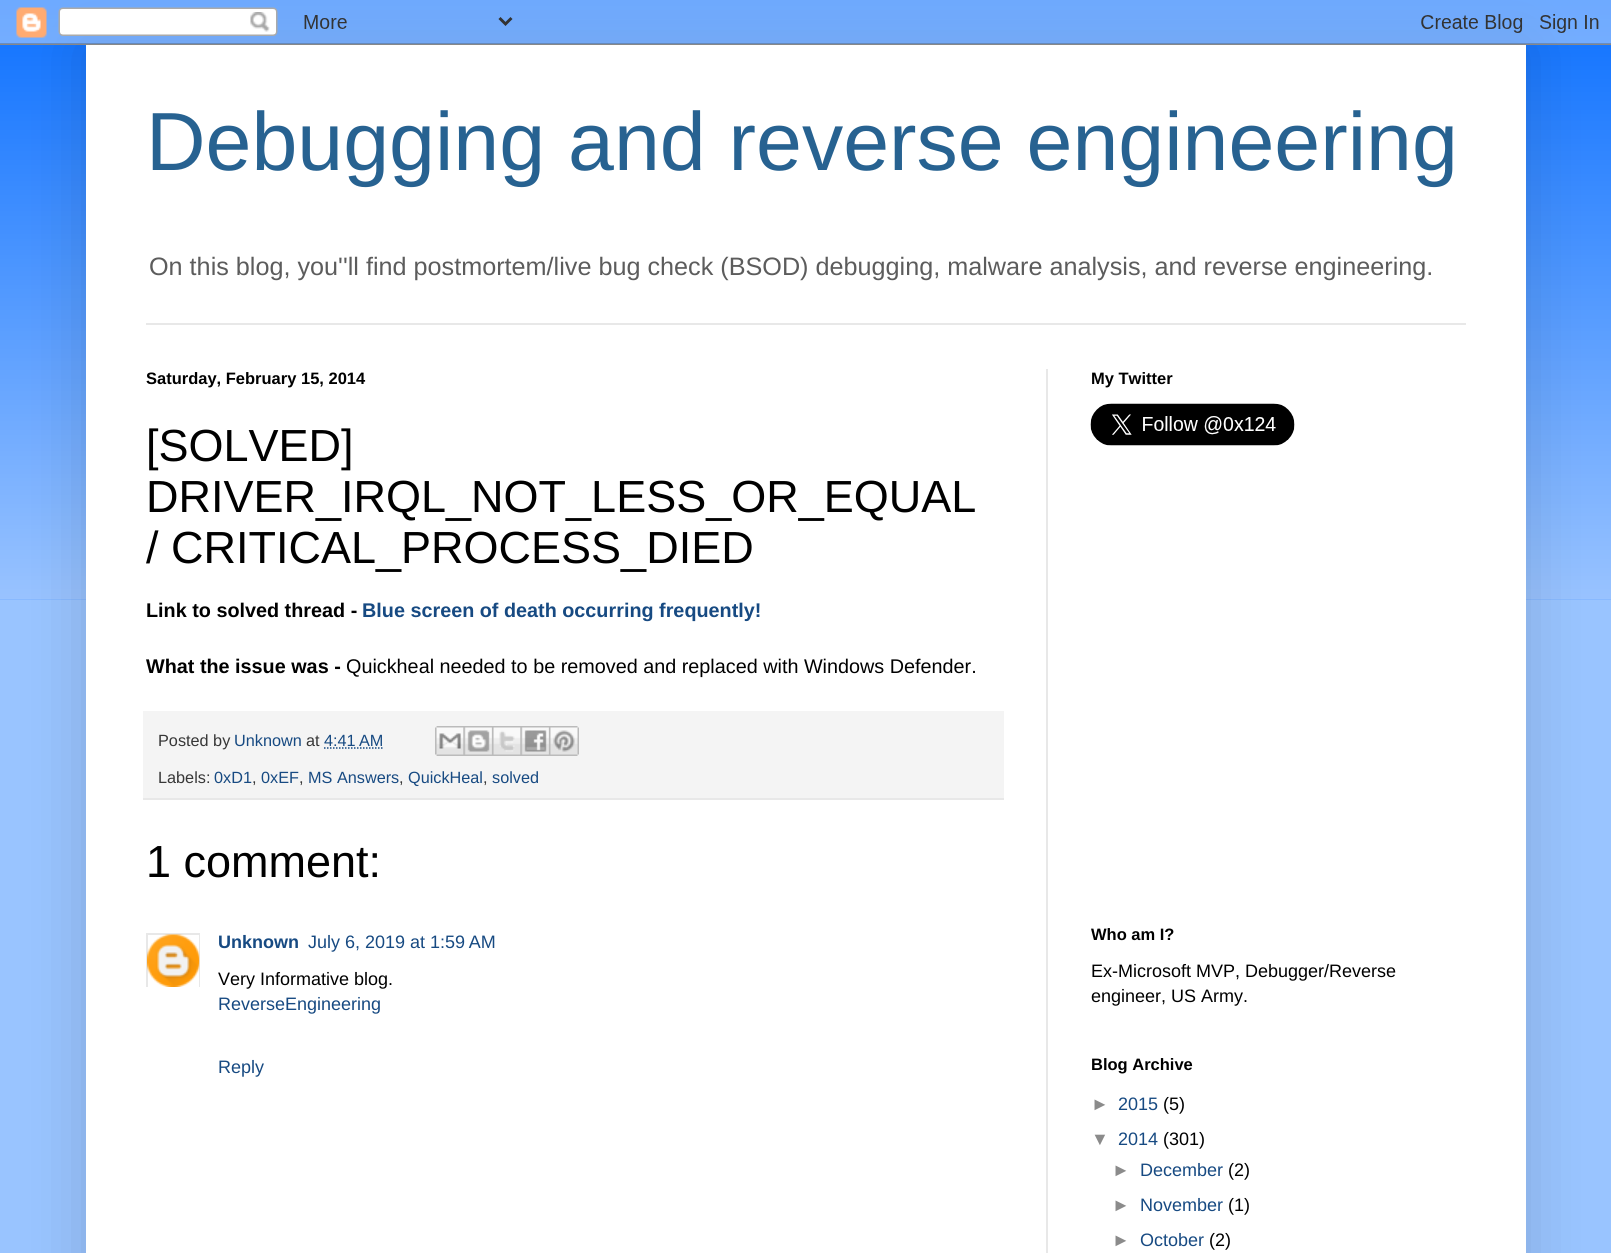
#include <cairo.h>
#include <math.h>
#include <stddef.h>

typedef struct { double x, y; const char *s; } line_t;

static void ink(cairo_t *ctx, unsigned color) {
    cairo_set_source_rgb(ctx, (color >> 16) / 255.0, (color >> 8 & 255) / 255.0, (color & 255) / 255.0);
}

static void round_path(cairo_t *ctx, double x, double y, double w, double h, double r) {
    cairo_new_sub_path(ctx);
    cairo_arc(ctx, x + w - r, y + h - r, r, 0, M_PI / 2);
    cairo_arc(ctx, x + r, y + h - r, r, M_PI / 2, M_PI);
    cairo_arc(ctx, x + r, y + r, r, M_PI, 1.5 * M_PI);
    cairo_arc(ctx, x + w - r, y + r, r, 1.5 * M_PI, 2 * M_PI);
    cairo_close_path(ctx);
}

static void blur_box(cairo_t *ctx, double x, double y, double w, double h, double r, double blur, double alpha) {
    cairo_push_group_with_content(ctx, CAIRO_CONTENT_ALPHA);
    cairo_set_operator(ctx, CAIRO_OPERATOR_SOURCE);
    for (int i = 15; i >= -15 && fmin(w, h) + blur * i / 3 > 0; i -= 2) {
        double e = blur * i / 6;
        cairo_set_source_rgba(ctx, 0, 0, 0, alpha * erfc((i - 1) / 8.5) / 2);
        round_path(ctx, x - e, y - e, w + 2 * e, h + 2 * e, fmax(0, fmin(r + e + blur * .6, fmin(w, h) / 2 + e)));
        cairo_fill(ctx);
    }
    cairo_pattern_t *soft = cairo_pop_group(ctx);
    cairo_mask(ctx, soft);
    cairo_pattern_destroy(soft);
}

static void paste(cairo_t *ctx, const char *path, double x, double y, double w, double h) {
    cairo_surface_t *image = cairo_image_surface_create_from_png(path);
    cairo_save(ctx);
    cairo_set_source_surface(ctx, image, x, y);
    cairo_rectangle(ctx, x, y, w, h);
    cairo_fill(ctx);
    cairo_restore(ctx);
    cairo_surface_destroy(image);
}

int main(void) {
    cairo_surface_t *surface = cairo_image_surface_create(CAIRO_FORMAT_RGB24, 1611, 1253);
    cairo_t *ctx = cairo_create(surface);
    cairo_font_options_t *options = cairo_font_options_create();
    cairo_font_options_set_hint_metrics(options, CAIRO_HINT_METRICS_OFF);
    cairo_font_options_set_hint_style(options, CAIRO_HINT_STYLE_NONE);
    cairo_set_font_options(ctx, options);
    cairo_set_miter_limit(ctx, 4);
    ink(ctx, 0x99C4FF);
    cairo_paint(ctx);
    ink(ctx, 0x0069FF);
    cairo_rectangle(ctx, 0, 0, 1611, 600);
    cairo_fill(ctx);
    paste(ctx, "media/1.png", 0, 0, 1611, 600);
    ink(ctx, 0x000000);
    blur_box(ctx, 86, 45, 1440, 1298, 0, 30, 0.15);
    paste(ctx, "media/2.png", 0, 0, 1611, 45);
    ink(ctx, 0xFFFFFF);
    cairo_rectangle(ctx, 86, 45, 1440, 1208);
    cairo_fill(ctx);
    cairo_select_font_face(ctx, "Liberation Sans", CAIRO_FONT_SLANT_NORMAL, CAIRO_FONT_WEIGHT_NORMAL);
    cairo_set_font_size(ctx, 82.5);
    ink(ctx, 0x276291);
    cairo_move_to(ctx, 146, 170);
    cairo_show_text(ctx, "Debugging and reverse engineering");
    cairo_set_font_size(ctx, 25.2);
    ink(ctx, 0x5C5C5C);
    cairo_move_to(ctx, 149, 275);
    cairo_show_text(ctx, "On this blog, you''ll find postmortem/live bug check (BSOD) debugging, malware analysis, and reverse engineering.");
    ink(ctx, 0xE8E8E8);
    cairo_rectangle(ctx, 146, 323, 1320, 2);
    cairo_fill(ctx);
    cairo_rectangle(ctx, 1046, 369, 2, 884);
    cairo_fill(ctx);
    cairo_select_font_face(ctx, "Liberation Sans", CAIRO_FONT_SLANT_NORMAL, CAIRO_FONT_WEIGHT_BOLD);
    cairo_set_font_size(ctx, 16.5);
    ink(ctx, 0x000000);
    cairo_move_to(ctx, 146, 384);
    cairo_show_text(ctx, "Saturday, February 15, 2014");
    cairo_select_font_face(ctx, "Liberation Sans", CAIRO_FONT_SLANT_NORMAL, CAIRO_FONT_WEIGHT_NORMAL);
    cairo_set_font_size(ctx, 45);
    {
        static const line_t items[] = {
            {146, 461, "[SOLVED]"},
            {146, 512, "DRIVER_IRQL_NOT_LESS_OR_EQUAL"},
            {146, 563, "/ CRITICAL_PROCESS_DIED"},
        };
        for (size_t i = 0; i < sizeof items / sizeof *items; i++) {
            cairo_move_to(ctx, items[i].x, items[i].y);
            cairo_show_text(ctx, items[i].s);
        }
    }
    cairo_select_font_face(ctx, "Liberation Sans", CAIRO_FONT_SLANT_NORMAL, CAIRO_FONT_WEIGHT_BOLD);
    cairo_set_font_size(ctx, 19.8);
    cairo_move_to(ctx, 146, 617);
    cairo_show_text(ctx, "Link to solved thread -");
    ink(ctx, 0x174A82);
    cairo_move_to(ctx, 362, 617);
    cairo_show_text(ctx, "Blue screen of death occurring frequently!");
    ink(ctx, 0x000000);
    cairo_move_to(ctx, 146, 673);
    cairo_show_text(ctx, "What the issue was -");
    cairo_select_font_face(ctx, "Liberation Sans", CAIRO_FONT_SLANT_NORMAL, CAIRO_FONT_WEIGHT_NORMAL);
    cairo_move_to(ctx, 346, 673);
    cairo_show_text(ctx, "Quickheal needed to be removed and replaced with Windows Defender.");
    ink(ctx, 0xF4F4F4);
    cairo_rectangle(ctx, 143, 711, 861, 87);
    cairo_fill(ctx);
    ink(ctx, 0xE8E8E8);
    cairo_rectangle(ctx, 143, 798, 861, 2);
    cairo_fill(ctx);
    cairo_set_font_size(ctx, 16.25);
    ink(ctx, 0x373737);
    cairo_move_to(ctx, 158, 746);
    cairo_show_text(ctx, "Posted by");
    ink(ctx, 0x174A82);
    cairo_move_to(ctx, 234, 746);
    cairo_show_text(ctx, "Unknown");
    ink(ctx, 0x373737);
    cairo_move_to(ctx, 306, 746);
    cairo_show_text(ctx, "at");
    ink(ctx, 0x174A82);
    cairo_move_to(ctx, 324, 746);
    cairo_show_text(ctx, "4:41 AM");
    cairo_new_path(ctx);
    cairo_move_to(ctx, 324, 748);
    cairo_line_to(ctx, 383, 748);
    cairo_set_line_width(ctx, 1.5);
    cairo_set_dash(ctx, (double[]){1.5, 1.5}, 2, 0);
    cairo_stroke(ctx);
    paste(ctx, "media/3.png", 435, 726, 29, 30);
    paste(ctx, "media/4.png", 463, 726, 29, 30);
    paste(ctx, "media/5.png", 492, 726, 29, 30);
    paste(ctx, "media/6.png", 520, 726, 29, 30);
    paste(ctx, "media/7.png", 549, 726, 30, 30);
    ink(ctx, 0x373737);
    cairo_move_to(ctx, 158, 783);
    cairo_show_text(ctx, "Labels:");
    ink(ctx, 0x174A82);
    cairo_move_to(ctx, 214, 783);
    cairo_show_text(ctx, "0xD1");
    ink(ctx, 0x373737);
    cairo_move_to(ctx, 252, 783);
    cairo_show_text(ctx, ",");
    ink(ctx, 0x174A82);
    cairo_move_to(ctx, 261, 783);
    cairo_show_text(ctx, "0xEF");
    ink(ctx, 0x373737);
    cairo_move_to(ctx, 299, 783);
    cairo_show_text(ctx, ",");
    ink(ctx, 0x174A82);
    cairo_move_to(ctx, 308, 783);
    cairo_show_text(ctx, "MS Answers");
    ink(ctx, 0x373737);
    cairo_move_to(ctx, 399, 783);
    cairo_show_text(ctx, ",");
    ink(ctx, 0x174A82);
    cairo_move_to(ctx, 408, 783);
    cairo_show_text(ctx, "QuickHeal");
    ink(ctx, 0x373737);
    cairo_move_to(ctx, 483, 783);
    cairo_show_text(ctx, ",");
    ink(ctx, 0x174A82);
    cairo_move_to(ctx, 492, 783);
    cairo_show_text(ctx, "solved");
    cairo_set_font_size(ctx, 45);
    ink(ctx, 0x000000);
    cairo_move_to(ctx, 146, 877);
    cairo_show_text(ctx, "1 comment:");
    cairo_save(ctx);
    cairo_rectangle(ctx, 146, 933, 54, 54);
    cairo_clip(ctx);
    cairo_rectangle(ctx, 147, 934, 53, 54);
    ink(ctx, 0xE8E8E8);
    cairo_set_line_width(ctx, 2);
    cairo_set_dash(ctx, NULL, 0, 0);
    cairo_stroke(ctx);
    cairo_restore(ctx);
    paste(ctx, "media/8.png", 147, 934, 53, 53);
    cairo_select_font_face(ctx, "Liberation Sans", CAIRO_FONT_SLANT_NORMAL, CAIRO_FONT_WEIGHT_BOLD);
    cairo_set_font_size(ctx, 18);
    ink(ctx, 0x174A82);
    cairo_move_to(ctx, 218, 948);
    cairo_show_text(ctx, "Unknown");
    cairo_select_font_face(ctx, "Liberation Sans", CAIRO_FONT_SLANT_NORMAL, CAIRO_FONT_WEIGHT_NORMAL);
    cairo_move_to(ctx, 308, 948);
    cairo_show_text(ctx, "July 6, 2019 at 1:59 AM");
    ink(ctx, 0x000000);
    cairo_move_to(ctx, 218, 985);
    cairo_show_text(ctx, "Very Informative blog.");
    ink(ctx, 0x174A82);
    cairo_move_to(ctx, 218, 1010);
    cairo_show_text(ctx, "ReverseEngineering");
    cairo_move_to(ctx, 218, 1073);
    cairo_show_text(ctx, "Reply");
    cairo_select_font_face(ctx, "Liberation Sans", CAIRO_FONT_SLANT_NORMAL, CAIRO_FONT_WEIGHT_BOLD);
    cairo_set_font_size(ctx, 16.5);
    ink(ctx, 0x000000);
    cairo_move_to(ctx, 1091, 384);
    cairo_show_text(ctx, "My Twitter");
    paste(ctx, "media/9.png", 1090, 403, 205, 43);
    cairo_move_to(ctx, 1091, 940);
    cairo_show_text(ctx, "Who am I?");
    cairo_select_font_face(ctx, "Liberation Sans", CAIRO_FONT_SLANT_NORMAL, CAIRO_FONT_WEIGHT_NORMAL);
    cairo_set_font_size(ctx, 18);
    cairo_move_to(ctx, 1091, 977);
    cairo_show_text(ctx, "Ex-Microsoft MVP, Debugger/Reverse");
    cairo_move_to(ctx, 1091, 1002);
    cairo_show_text(ctx, "engineer, US Army.");
    cairo_select_font_face(ctx, "Liberation Sans", CAIRO_FONT_SLANT_NORMAL, CAIRO_FONT_WEIGHT_BOLD);
    cairo_set_font_size(ctx, 16.5);
    cairo_move_to(ctx, 1091, 1070);
    cairo_show_text(ctx, "Blog Archive");
    cairo_select_font_face(ctx, "Liberation Sans", CAIRO_FONT_SLANT_NORMAL, CAIRO_FONT_WEIGHT_NORMAL);
    cairo_set_font_size(ctx, 18);
    ink(ctx, 0x8B8B8B);
    cairo_move_to(ctx, 1091, 1110);
    cairo_show_text(ctx, "►");
    ink(ctx, 0x174A82);
    cairo_move_to(ctx, 1118, 1110);
    cairo_show_text(ctx, "2015");
    ink(ctx, 0x000000);
    cairo_move_to(ctx, 1163, 1110);
    cairo_show_text(ctx, "(5)");
    ink(ctx, 0x8B8B8B);
    cairo_move_to(ctx, 1091, 1145);
    cairo_show_text(ctx, "▼");
    ink(ctx, 0x174A82);
    cairo_move_to(ctx, 1118, 1145);
    cairo_show_text(ctx, "2014");
    ink(ctx, 0x000000);
    cairo_move_to(ctx, 1163, 1145);
    cairo_show_text(ctx, "(301)");
    ink(ctx, 0x8B8B8B);
    cairo_move_to(ctx, 1112, 1176);
    cairo_show_text(ctx, "►");
    ink(ctx, 0x174A82);
    cairo_move_to(ctx, 1140, 1176);
    cairo_show_text(ctx, "December");
    ink(ctx, 0x000000);
    cairo_move_to(ctx, 1228, 1176);
    cairo_show_text(ctx, "(2)");
    ink(ctx, 0x8B8B8B);
    cairo_move_to(ctx, 1112, 1211);
    cairo_show_text(ctx, "►");
    ink(ctx, 0x174A82);
    cairo_move_to(ctx, 1140, 1211);
    cairo_show_text(ctx, "November");
    ink(ctx, 0x000000);
    cairo_move_to(ctx, 1228, 1211);
    cairo_show_text(ctx, "(1)");
    ink(ctx, 0x8B8B8B);
    cairo_move_to(ctx, 1112, 1246);
    cairo_show_text(ctx, "►");
    ink(ctx, 0x174A82);
    cairo_move_to(ctx, 1140, 1246);
    cairo_show_text(ctx, "October");
    ink(ctx, 0x000000);
    cairo_move_to(ctx, 1209, 1246);
    cairo_show_text(ctx, "(2)");
    cairo_surface_write_to_png(surface, "image.png");
    cairo_font_options_destroy(options);
    cairo_destroy(ctx);
    cairo_surface_destroy(surface);
    return 0;
}
